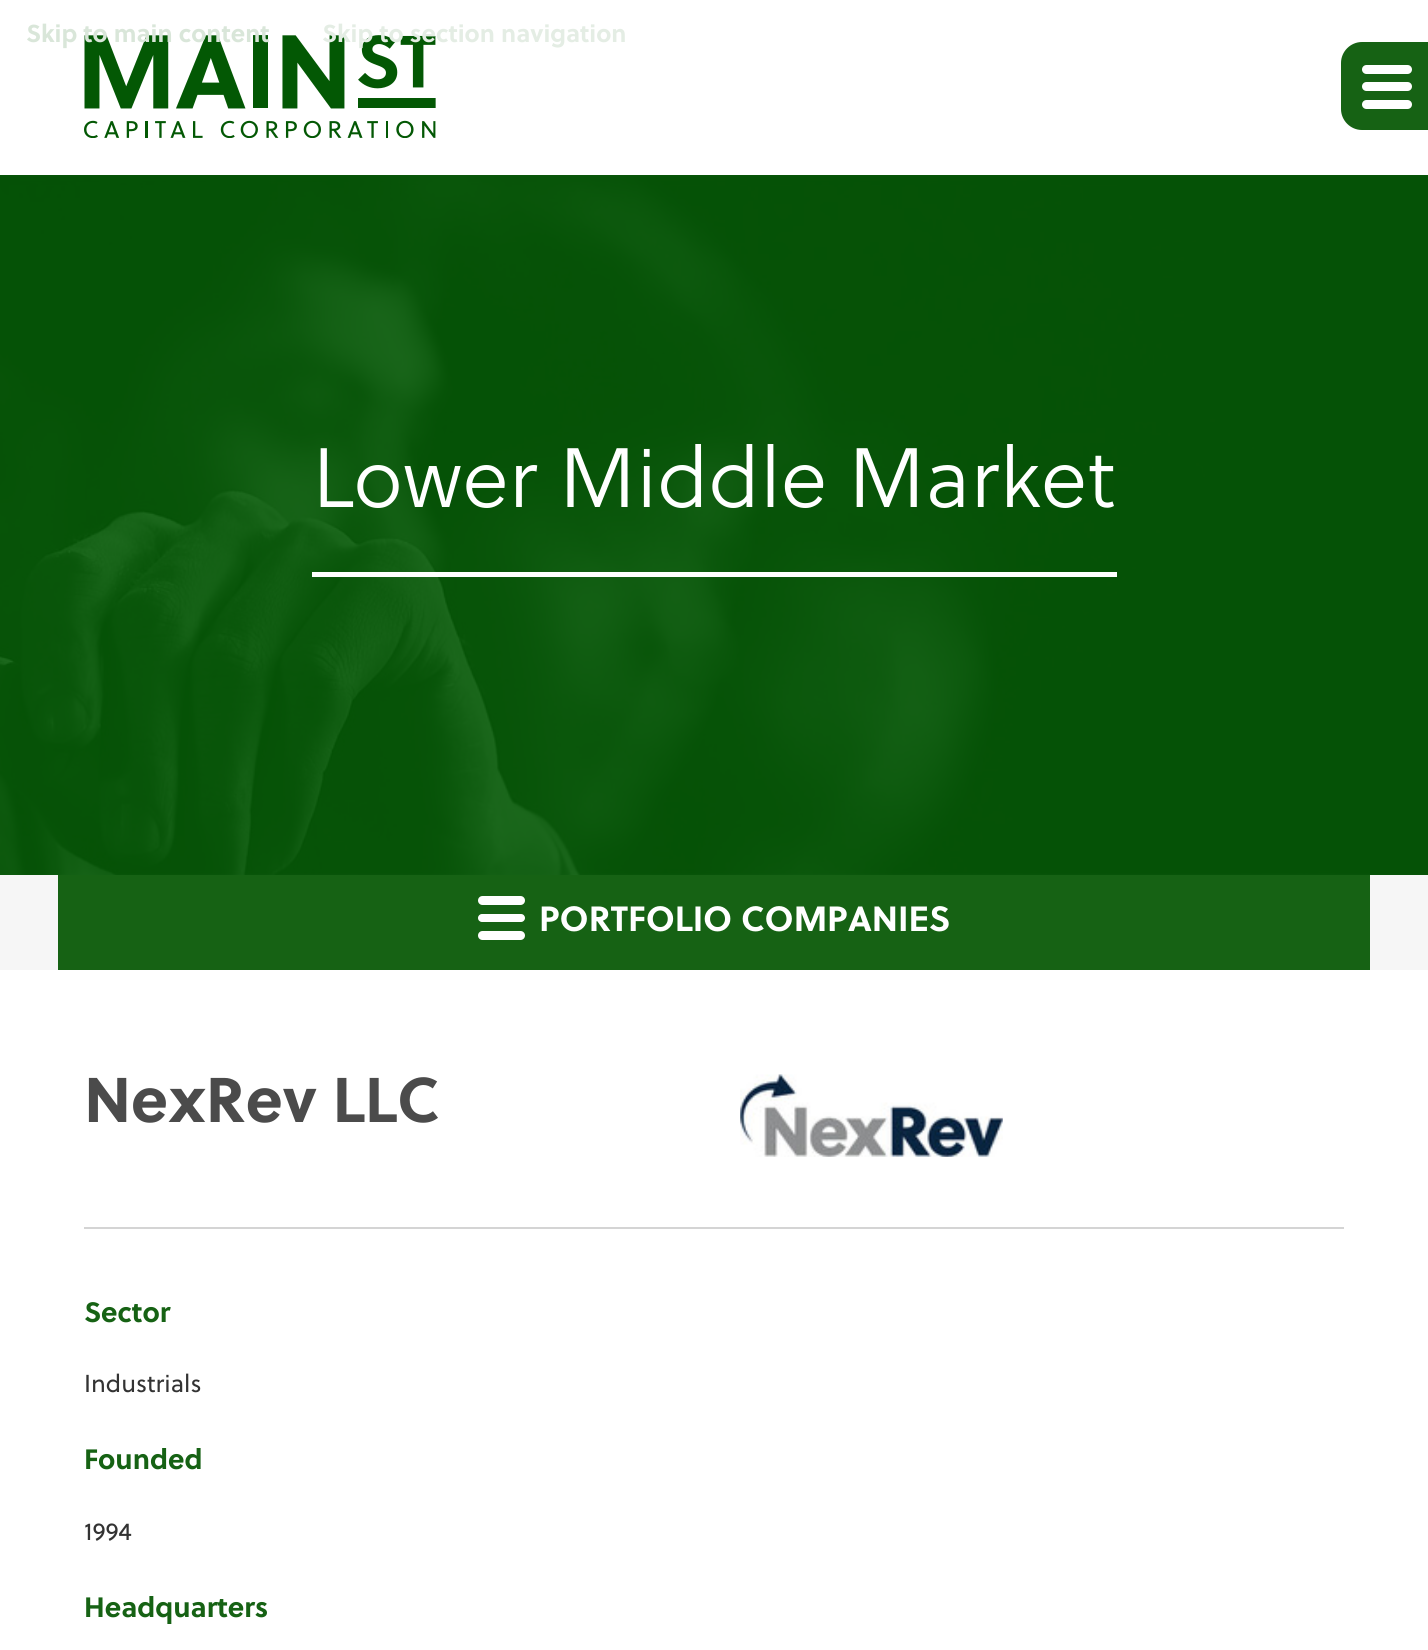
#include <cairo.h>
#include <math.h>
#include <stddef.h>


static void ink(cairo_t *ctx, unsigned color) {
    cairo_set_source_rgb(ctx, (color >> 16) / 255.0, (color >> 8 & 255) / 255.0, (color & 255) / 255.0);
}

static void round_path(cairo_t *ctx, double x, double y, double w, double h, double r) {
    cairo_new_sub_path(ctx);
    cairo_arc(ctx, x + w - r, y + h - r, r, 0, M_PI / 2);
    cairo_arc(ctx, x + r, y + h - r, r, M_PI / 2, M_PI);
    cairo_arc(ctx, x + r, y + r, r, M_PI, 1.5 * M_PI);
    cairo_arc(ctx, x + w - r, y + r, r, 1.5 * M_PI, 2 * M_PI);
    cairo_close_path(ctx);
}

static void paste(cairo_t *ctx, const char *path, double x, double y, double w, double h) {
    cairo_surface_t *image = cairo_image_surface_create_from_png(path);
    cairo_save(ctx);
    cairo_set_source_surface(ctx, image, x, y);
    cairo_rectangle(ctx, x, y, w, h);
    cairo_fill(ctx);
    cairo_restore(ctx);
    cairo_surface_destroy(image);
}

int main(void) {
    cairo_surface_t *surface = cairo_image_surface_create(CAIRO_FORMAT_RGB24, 1428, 1650);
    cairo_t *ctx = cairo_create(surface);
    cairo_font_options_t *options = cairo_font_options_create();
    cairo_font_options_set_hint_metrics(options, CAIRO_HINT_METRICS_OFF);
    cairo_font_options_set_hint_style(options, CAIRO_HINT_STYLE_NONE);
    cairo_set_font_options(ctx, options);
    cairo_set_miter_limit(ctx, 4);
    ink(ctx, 0xFFFFFF);
    cairo_paint(ctx);
    paste(ctx, "media/1.png", 84, 35, 352, 103);
    cairo_select_font_face(ctx, "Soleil", CAIRO_FONT_SLANT_NORMAL, CAIRO_FONT_WEIGHT_BOLD);
    cairo_set_font_size(ctx, 24.5);
    ink(ctx, 0xD9E6D9);
    cairo_move_to(ctx, 26, 42);
    cairo_show_text(ctx, "Skip to main content");
    ink(ctx, 0xE4EDE4);
    cairo_move_to(ctx, 322, 42);
    cairo_show_text(ctx, "Skip to section navigation");
    ink(ctx, 0x166214);
    cairo_new_path(ctx);
    cairo_move_to(ctx, 1362, 42);
    cairo_line_to(ctx, 1428, 42);
    cairo_line_to(ctx, 1428, 130);
    cairo_line_to(ctx, 1362, 130);
    cairo_curve_to(ctx, 1350.5, 130, 1341, 120.5, 1341, 109);
    cairo_line_to(ctx, 1341, 63);
    cairo_curve_to(ctx, 1341, 51.5, 1350.5, 42, 1362, 42);
    cairo_close_path(ctx);
    cairo_fill(ctx);
    ink(ctx, 0xFFFFFF);
    round_path(ctx, 1362, 65, 50, 9, 4.5);
    cairo_fill(ctx);
    round_path(ctx, 1362, 82, 50, 9, 4.5);
    cairo_fill(ctx);
    round_path(ctx, 1362, 100, 50, 9, 4.5);
    cairo_fill(ctx);
    paste(ctx, "media/2.png", 0, 175, 1428, 700);
    cairo_rectangle(ctx, 312, 572, 805, 5);
    cairo_fill(ctx);
    cairo_select_font_face(ctx, "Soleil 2", CAIRO_FONT_SLANT_NORMAL, CAIRO_FONT_WEIGHT_NORMAL);
    cairo_set_font_size(ctx, 84);
    cairo_move_to(ctx, 312, 507);
    cairo_show_text(ctx, "Lower Middle Market");
    ink(ctx, 0xF6F6F6);
    cairo_rectangle(ctx, 0, 875, 1428, 95);
    cairo_fill(ctx);
    ink(ctx, 0x166214);
    cairo_rectangle(ctx, 58, 875, 1312, 95);
    cairo_fill(ctx);
    ink(ctx, 0xFFFFFF);
    round_path(ctx, 478, 896, 47, 9, 4.5);
    cairo_fill(ctx);
    round_path(ctx, 478, 914, 47, 8, 4);
    cairo_fill(ctx);
    round_path(ctx, 478, 931, 47, 9, 4.5);
    cairo_fill(ctx);
    cairo_select_font_face(ctx, "Soleil", CAIRO_FONT_SLANT_NORMAL, CAIRO_FONT_WEIGHT_BOLD);
    cairo_set_font_size(ctx, 35);
    cairo_move_to(ctx, 539, 931);
    cairo_show_text(ctx, "PORTFOLIO COMPANIES");
    cairo_set_font_size(ctx, 63);
    ink(ctx, 0x4B4B4B);
    cairo_move_to(ctx, 84, 1122);
    cairo_show_text(ctx, "NexRev LLC");
    paste(ctx, "media/3.png", 740, 1074, 263, 83);
    ink(ctx, 0xD4D4D4);
    cairo_rectangle(ctx, 84, 1227, 1260, 2);
    cairo_fill(ctx);
    cairo_set_font_size(ctx, 28);
    ink(ctx, 0x166214);
    cairo_move_to(ctx, 84, 1322);
    cairo_show_text(ctx, "Sector");
    cairo_select_font_face(ctx, "Soleil", CAIRO_FONT_SLANT_NORMAL, CAIRO_FONT_WEIGHT_NORMAL);
    cairo_set_font_size(ctx, 24.5);
    ink(ctx, 0x333333);
    cairo_move_to(ctx, 84, 1392);
    cairo_show_text(ctx, "Industrials");
    cairo_select_font_face(ctx, "Soleil", CAIRO_FONT_SLANT_NORMAL, CAIRO_FONT_WEIGHT_BOLD);
    cairo_set_font_size(ctx, 28);
    ink(ctx, 0x166214);
    cairo_move_to(ctx, 84, 1469);
    cairo_show_text(ctx, "Founded");
    cairo_select_font_face(ctx, "Soleil", CAIRO_FONT_SLANT_NORMAL, CAIRO_FONT_WEIGHT_NORMAL);
    cairo_set_font_size(ctx, 24.5);
    ink(ctx, 0x333333);
    cairo_move_to(ctx, 84, 1540);
    cairo_show_text(ctx, "1994");
    cairo_select_font_face(ctx, "Soleil", CAIRO_FONT_SLANT_NORMAL, CAIRO_FONT_WEIGHT_BOLD);
    cairo_set_font_size(ctx, 28);
    ink(ctx, 0x166214);
    cairo_move_to(ctx, 84, 1617);
    cairo_show_text(ctx, "Headquarters");
    cairo_surface_write_to_png(surface, "image.png");
    cairo_font_options_destroy(options);
    cairo_destroy(ctx);
    cairo_surface_destroy(surface);
    return 0;
}
